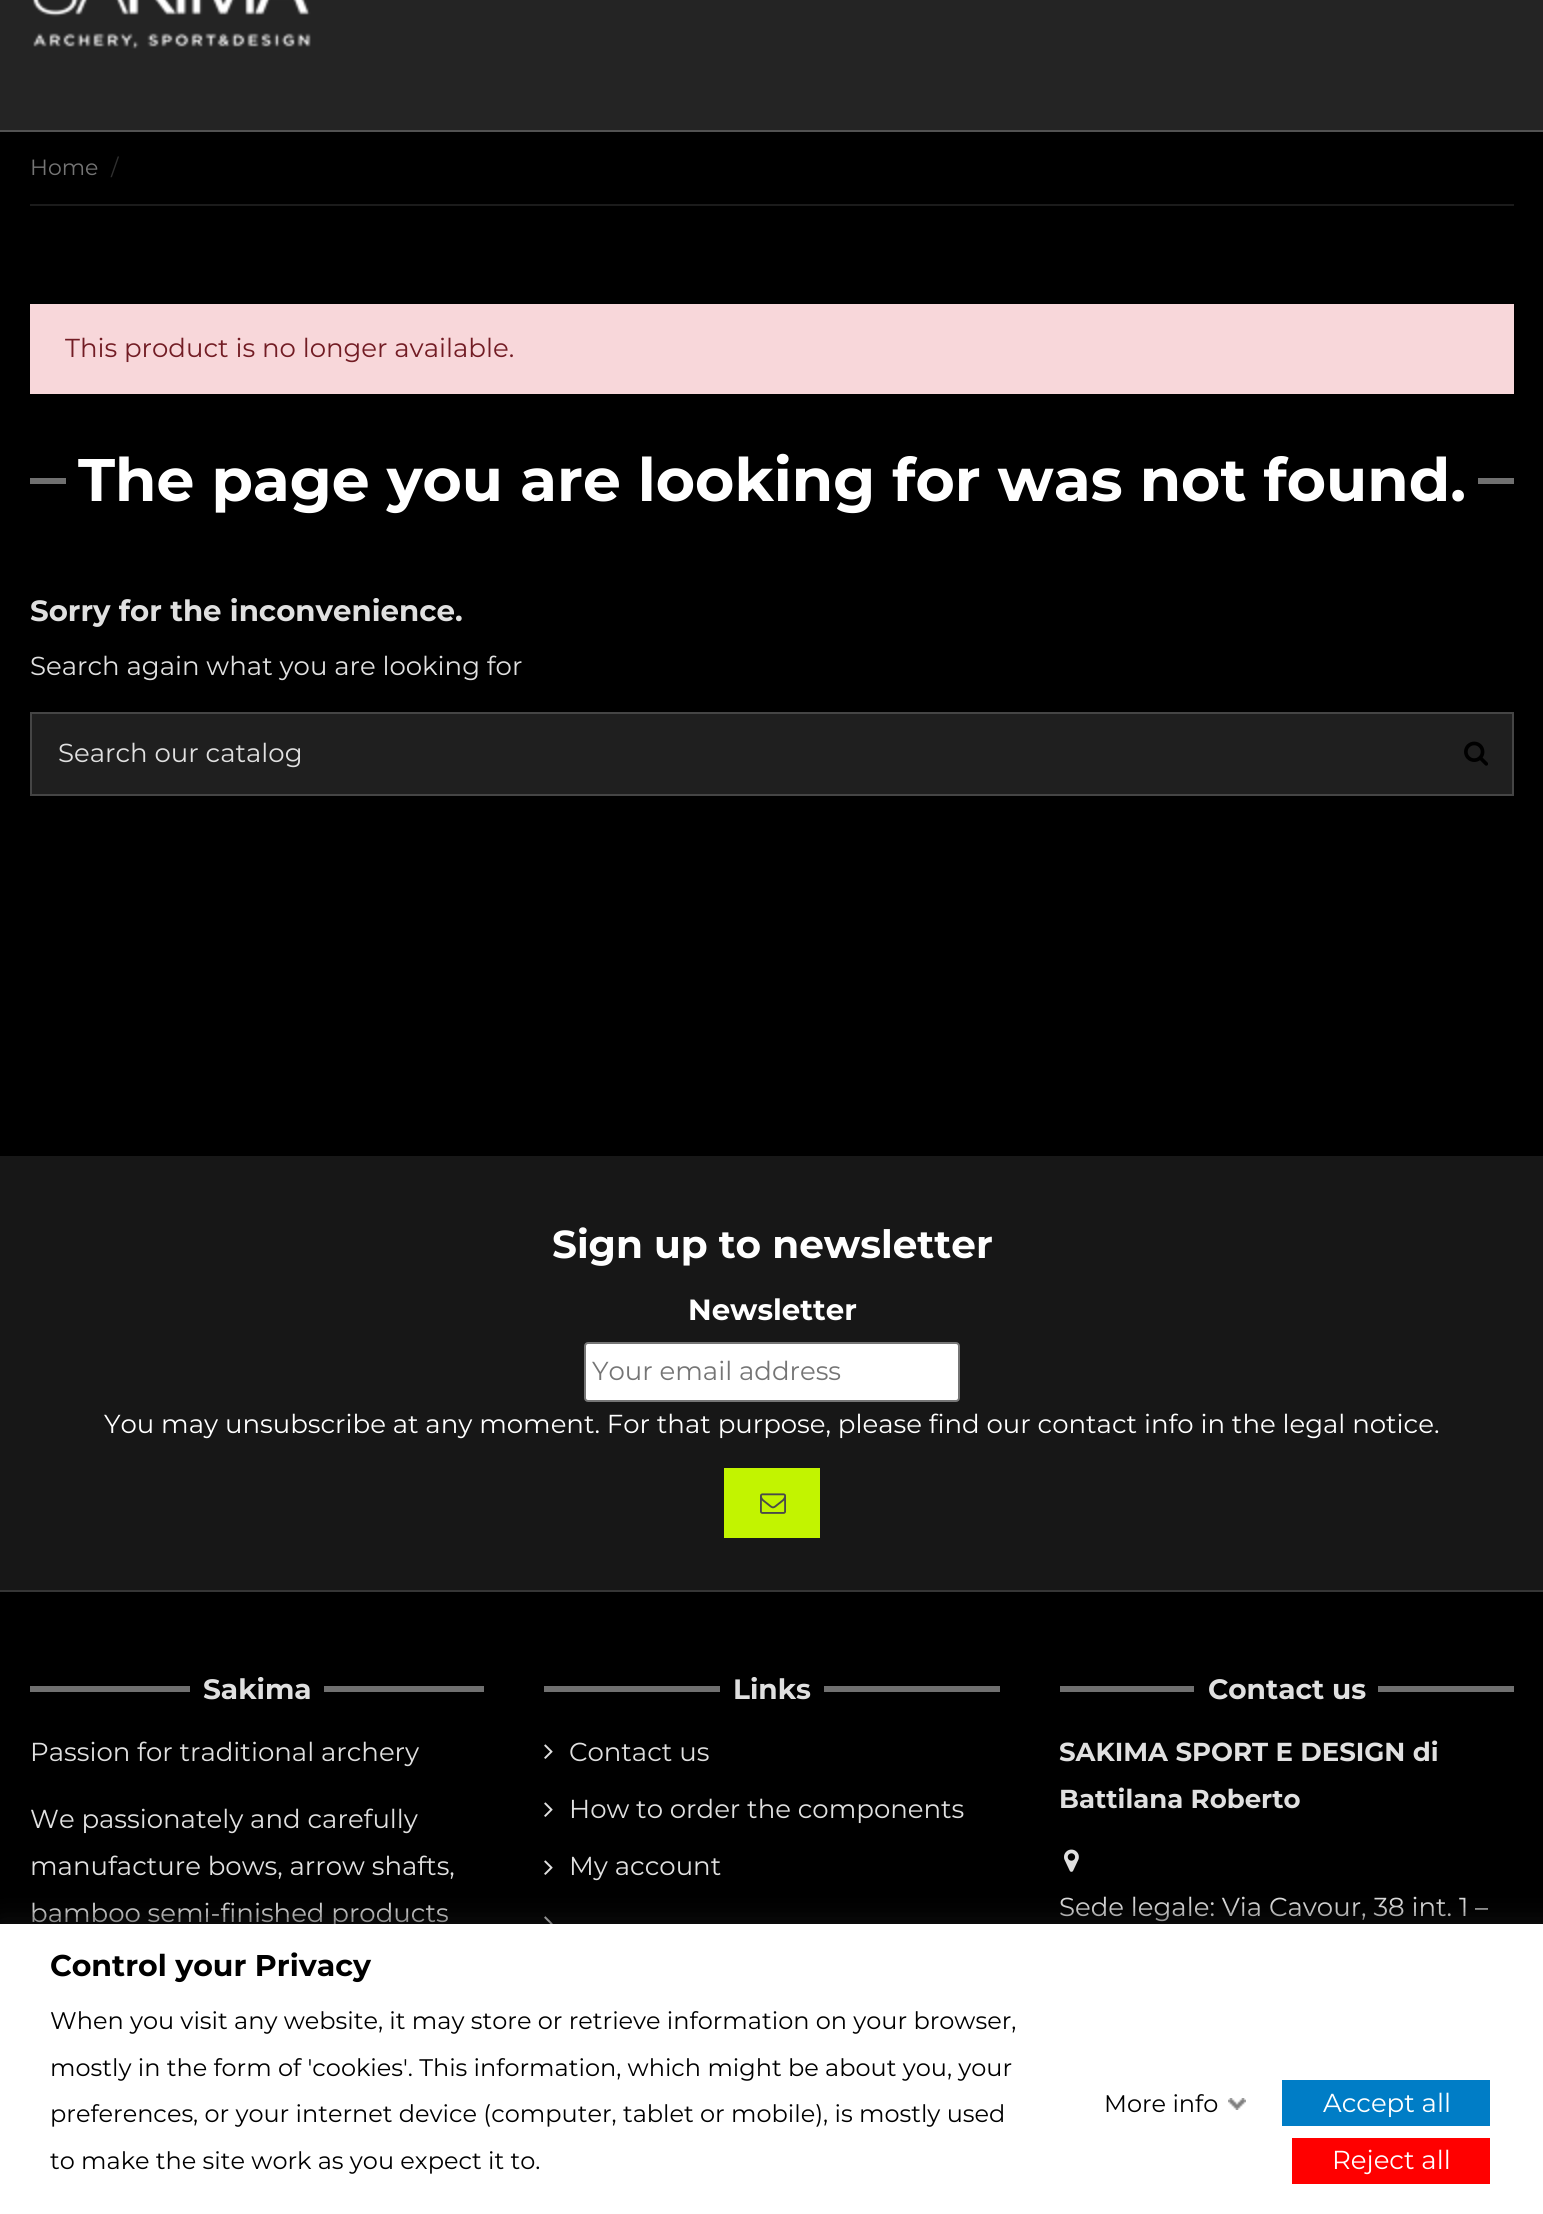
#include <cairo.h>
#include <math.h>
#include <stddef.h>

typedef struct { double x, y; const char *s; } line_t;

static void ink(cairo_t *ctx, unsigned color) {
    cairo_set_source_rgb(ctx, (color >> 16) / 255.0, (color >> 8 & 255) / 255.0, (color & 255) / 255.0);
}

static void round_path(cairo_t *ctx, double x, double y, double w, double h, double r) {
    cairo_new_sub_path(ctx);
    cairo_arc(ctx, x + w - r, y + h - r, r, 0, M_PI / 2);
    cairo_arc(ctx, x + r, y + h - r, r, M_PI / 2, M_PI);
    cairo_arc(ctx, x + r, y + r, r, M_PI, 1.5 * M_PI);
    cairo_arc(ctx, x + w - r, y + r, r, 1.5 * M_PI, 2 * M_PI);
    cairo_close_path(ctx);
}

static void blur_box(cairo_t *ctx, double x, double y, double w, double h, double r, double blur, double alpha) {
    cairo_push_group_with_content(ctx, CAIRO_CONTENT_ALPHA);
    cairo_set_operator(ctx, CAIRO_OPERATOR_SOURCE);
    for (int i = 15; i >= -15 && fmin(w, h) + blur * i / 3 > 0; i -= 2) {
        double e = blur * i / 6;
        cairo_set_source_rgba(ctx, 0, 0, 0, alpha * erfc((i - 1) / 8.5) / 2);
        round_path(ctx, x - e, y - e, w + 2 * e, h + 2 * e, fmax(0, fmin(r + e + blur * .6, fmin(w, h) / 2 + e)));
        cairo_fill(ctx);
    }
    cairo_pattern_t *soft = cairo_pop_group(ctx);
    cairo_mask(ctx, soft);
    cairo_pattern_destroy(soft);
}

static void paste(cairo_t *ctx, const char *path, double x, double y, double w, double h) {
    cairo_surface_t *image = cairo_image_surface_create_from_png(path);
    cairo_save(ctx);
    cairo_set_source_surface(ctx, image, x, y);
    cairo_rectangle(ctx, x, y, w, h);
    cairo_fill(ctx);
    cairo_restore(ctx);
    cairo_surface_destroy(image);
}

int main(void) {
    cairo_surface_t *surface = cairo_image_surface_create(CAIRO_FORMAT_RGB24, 1543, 2214);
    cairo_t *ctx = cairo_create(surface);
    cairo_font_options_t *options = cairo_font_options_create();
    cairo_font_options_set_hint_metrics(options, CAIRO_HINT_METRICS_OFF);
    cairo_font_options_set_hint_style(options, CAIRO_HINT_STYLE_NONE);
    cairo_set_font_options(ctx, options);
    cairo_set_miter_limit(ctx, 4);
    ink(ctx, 0x000000);
    cairo_paint(ctx);
    ink(ctx, 0x242424);
    cairo_rectangle(ctx, 0, 0, 1543, 130);
    cairo_fill(ctx);
    ink(ctx, 0x525252);
    cairo_rectangle(ctx, 0, 130, 1543, 2);
    cairo_fill(ctx);
    paste(ctx, "media/1.png", 32, 0, 279, 49);
    ink(ctx, 0x1B1B1B);
    cairo_rectangle(ctx, 30, 204, 1484, 2);
    cairo_fill(ctx);
    cairo_select_font_face(ctx, "Montserrat", CAIRO_FONT_SLANT_NORMAL, CAIRO_FONT_WEIGHT_NORMAL);
    cairo_set_font_size(ctx, 22);
    ink(ctx, 0x757575);
    cairo_move_to(ctx, 30, 175);
    cairo_show_text(ctx, "Home");
    ink(ctx, 0x2F2F2F);
    cairo_move_to(ctx, 111, 175);
    cairo_show_text(ctx, "/");
    ink(ctx, 0xF8D7DA);
    cairo_rectangle(ctx, 30, 304, 1484, 90);
    cairo_fill(ctx);
    cairo_set_font_size(ctx, 26);
    ink(ctx, 0x721C24);
    cairo_move_to(ctx, 65, 357);
    cairo_show_text(ctx, "This product is no longer available.");
    ink(ctx, 0x707070);
    cairo_rectangle(ctx, 30, 478, 36, 6);
    cairo_fill(ctx);
    cairo_select_font_face(ctx, "Montserrat", CAIRO_FONT_SLANT_NORMAL, CAIRO_FONT_WEIGHT_BOLD);
    cairo_set_font_size(ctx, 60);
    ink(ctx, 0xFFFFFF);
    cairo_move_to(ctx, 78, 501);
    cairo_show_text(ctx, "The page you are looking for was not found.");
    ink(ctx, 0x707070);
    cairo_rectangle(ctx, 1478, 478, 36, 6);
    cairo_fill(ctx);
    cairo_set_font_size(ctx, 29.25);
    ink(ctx, 0xE0E0E0);
    cairo_move_to(ctx, 30, 621);
    cairo_show_text(ctx, "Sorry for the inconvenience.");
    cairo_select_font_face(ctx, "Montserrat", CAIRO_FONT_SLANT_NORMAL, CAIRO_FONT_WEIGHT_NORMAL);
    cairo_set_font_size(ctx, 26);
    cairo_move_to(ctx, 30, 675);
    cairo_show_text(ctx, "Search again what you are looking for");
    ink(ctx, 0x1F1F1F);
    cairo_rectangle(ctx, 31, 713, 1482, 82);
    cairo_fill_preserve(ctx);
    ink(ctx, 0x454545);
    cairo_stroke(ctx);
    ink(ctx, 0xE0E0E0);
    cairo_move_to(ctx, 58, 762);
    cairo_show_text(ctx, "Search our catalog");
    paste(ctx, "media/2.png", 1464, 741, 24, 25);
    ink(ctx, 0x171717);
    cairo_rectangle(ctx, 0, 1156, 1543, 434);
    cairo_fill(ctx);
    cairo_select_font_face(ctx, "Montserrat", CAIRO_FONT_SLANT_NORMAL, CAIRO_FONT_WEIGHT_BOLD);
    cairo_set_font_size(ctx, 39);
    ink(ctx, 0xFFFFFF);
    cairo_move_to(ctx, 552, 1258);
    cairo_show_text(ctx, "Sign up to newsletter");
    cairo_set_font_size(ctx, 29.25);
    cairo_move_to(ctx, 688, 1320);
    cairo_show_text(ctx, "Newsletter");
    round_path(ctx, 585, 1343, 374, 58, 3);
    cairo_fill_preserve(ctx);
    ink(ctx, 0x767676);
    cairo_stroke(ctx);
    cairo_select_font_face(ctx, "Montserrat", CAIRO_FONT_SLANT_NORMAL, CAIRO_FONT_WEIGHT_NORMAL);
    cairo_set_font_size(ctx, 26);
    ink(ctx, 0x757575);
    cairo_move_to(ctx, 592, 1380);
    cairo_show_text(ctx, "Your email address");
    ink(ctx, 0xFFFFFF);
    cairo_move_to(ctx, 104, 1433);
    cairo_show_text(ctx, "You may unsubscribe at any moment. For that purpose, please find our contact info in the legal notice.");
    ink(ctx, 0xC2F400);
    cairo_rectangle(ctx, 724, 1468, 96, 70);
    cairo_fill(ctx);
    paste(ctx, "media/3.png", 760, 1493, 26, 21);
    ink(ctx, 0x363636);
    cairo_rectangle(ctx, 0, 1590, 1543, 2);
    cairo_fill(ctx);
    ink(ctx, 0x707070);
    cairo_rectangle(ctx, 30, 1686, 160, 6);
    cairo_fill(ctx);
    cairo_select_font_face(ctx, "Montserrat", CAIRO_FONT_SLANT_NORMAL, CAIRO_FONT_WEIGHT_BOLD);
    cairo_set_font_size(ctx, 28);
    ink(ctx, 0xE0E0E0);
    cairo_move_to(ctx, 203, 1699);
    cairo_show_text(ctx, "Sakima");
    ink(ctx, 0x707070);
    cairo_rectangle(ctx, 324, 1686, 160, 6);
    cairo_fill(ctx);
    cairo_select_font_face(ctx, "Montserrat", CAIRO_FONT_SLANT_NORMAL, CAIRO_FONT_WEIGHT_NORMAL);
    cairo_set_font_size(ctx, 26);
    ink(ctx, 0xE0E0E0);
    {
        static const line_t items[] = {
            {30, 1761, "Passion for traditional archery"},
            {30, 1828, "We passionately and carefully"},
            {30, 1875, "manufacture bows, arrow shafts,"},
            {30, 1922, "bamboo semi-finished products"},
        };
        for (size_t i = 0; i < sizeof items / sizeof *items; i++) {
            cairo_move_to(ctx, items[i].x, items[i].y);
            cairo_show_text(ctx, items[i].s);
        }
    }
    ink(ctx, 0x707070);
    cairo_rectangle(ctx, 544, 1686, 176, 6);
    cairo_fill(ctx);
    cairo_select_font_face(ctx, "Montserrat", CAIRO_FONT_SLANT_NORMAL, CAIRO_FONT_WEIGHT_BOLD);
    cairo_set_font_size(ctx, 28);
    ink(ctx, 0xE0E0E0);
    cairo_move_to(ctx, 733, 1699);
    cairo_show_text(ctx, "Links");
    ink(ctx, 0x707070);
    cairo_rectangle(ctx, 824, 1686, 176, 6);
    cairo_fill(ctx);
    paste(ctx, "media/4.png", 544, 1744, 9, 15);
    cairo_select_font_face(ctx, "Montserrat", CAIRO_FONT_SLANT_NORMAL, CAIRO_FONT_WEIGHT_NORMAL);
    cairo_set_font_size(ctx, 26);
    ink(ctx, 0xE0E0E0);
    cairo_move_to(ctx, 569, 1761);
    cairo_show_text(ctx, "Contact us");
    paste(ctx, "media/4.png", 544, 1802, 9, 15);
    cairo_move_to(ctx, 569, 1818);
    cairo_show_text(ctx, "How to order the components");
    paste(ctx, "media/4.png", 544, 1860, 9, 15);
    cairo_move_to(ctx, 569, 1875);
    cairo_show_text(ctx, "My account");
    paste(ctx, "media/5.png", 544, 1916, 9, 8);
    ink(ctx, 0x707070);
    cairo_rectangle(ctx, 1060, 1686, 134, 6);
    cairo_fill(ctx);
    cairo_select_font_face(ctx, "Montserrat", CAIRO_FONT_SLANT_NORMAL, CAIRO_FONT_WEIGHT_BOLD);
    cairo_set_font_size(ctx, 28);
    ink(ctx, 0xE0E0E0);
    cairo_move_to(ctx, 1208, 1699);
    cairo_show_text(ctx, "Contact us");
    ink(ctx, 0x707070);
    cairo_rectangle(ctx, 1378, 1686, 136, 6);
    cairo_fill(ctx);
    cairo_set_font_size(ctx, 26);
    ink(ctx, 0xE0E0E0);
    cairo_move_to(ctx, 1059, 1761);
    cairo_show_text(ctx, "SAKIMA SPORT E DESIGN di");
    cairo_move_to(ctx, 1059, 1808);
    cairo_show_text(ctx, "Battilana Roberto");
    paste(ctx, "media/6.png", 1064, 1849, 15, 23);
    cairo_select_font_face(ctx, "Montserrat", CAIRO_FONT_SLANT_NORMAL, CAIRO_FONT_WEIGHT_NORMAL);
    cairo_move_to(ctx, 1059, 1916);
    cairo_show_text(ctx, "Sede legale: Via Cavour, 38 int. 1 –");
    ink(ctx, 0x121212);
    blur_box(ctx, 0, 1924, 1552, 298, 0, 14, 1);
    ink(ctx, 0xFFFFFF);
    cairo_rectangle(ctx, 0, 1924, 1543, 290);
    cairo_fill(ctx);
    cairo_select_font_face(ctx, "Montserrat", CAIRO_FONT_SLANT_NORMAL, CAIRO_FONT_WEIGHT_BOLD);
    cairo_set_font_size(ctx, 30);
    ink(ctx, 0x000000);
    cairo_move_to(ctx, 50, 1976);
    cairo_show_text(ctx, "Control your Privacy");
    cairo_select_font_face(ctx, "Montserrat", CAIRO_FONT_SLANT_NORMAL, CAIRO_FONT_WEIGHT_NORMAL);
    cairo_set_font_size(ctx, 24);
    {
        static const line_t items[] = {
            {50, 2029, "When you visit any website, it may store or retrieve information on your browser,"},
            {50, 2076, "mostly in the form of 'cookies'. This information, which might be about you, your"},
            {50, 2122, "preferences, or your internet device (computer, tablet or mobile), is mostly used"},
            {50, 2169, "to make the site work as you expect it to."},
            {1104, 2112, "More info"},
        };
        for (size_t i = 0; i < sizeof items / sizeof *items; i++) {
            cairo_move_to(ctx, items[i].x, items[i].y);
            cairo_show_text(ctx, items[i].s);
        }
    }
    paste(ctx, "media/7.png", 1228, 2098, 18, 12);
    ink(ctx, 0x007DC6);
    cairo_rectangle(ctx, 1282, 2080, 208, 46);
    cairo_fill(ctx);
    cairo_set_font_size(ctx, 26);
    ink(ctx, 0xFFFFFF);
    cairo_move_to(ctx, 1323, 2112);
    cairo_show_text(ctx, "Accept all");
    ink(ctx, 0xFF0000);
    cairo_rectangle(ctx, 1292, 2138, 198, 46);
    cairo_fill(ctx);
    ink(ctx, 0xFFFFFF);
    cairo_move_to(ctx, 1332, 2169);
    cairo_show_text(ctx, "Reject all");
    cairo_surface_write_to_png(surface, "image.png");
    cairo_font_options_destroy(options);
    cairo_destroy(ctx);
    cairo_surface_destroy(surface);
    return 0;
}
